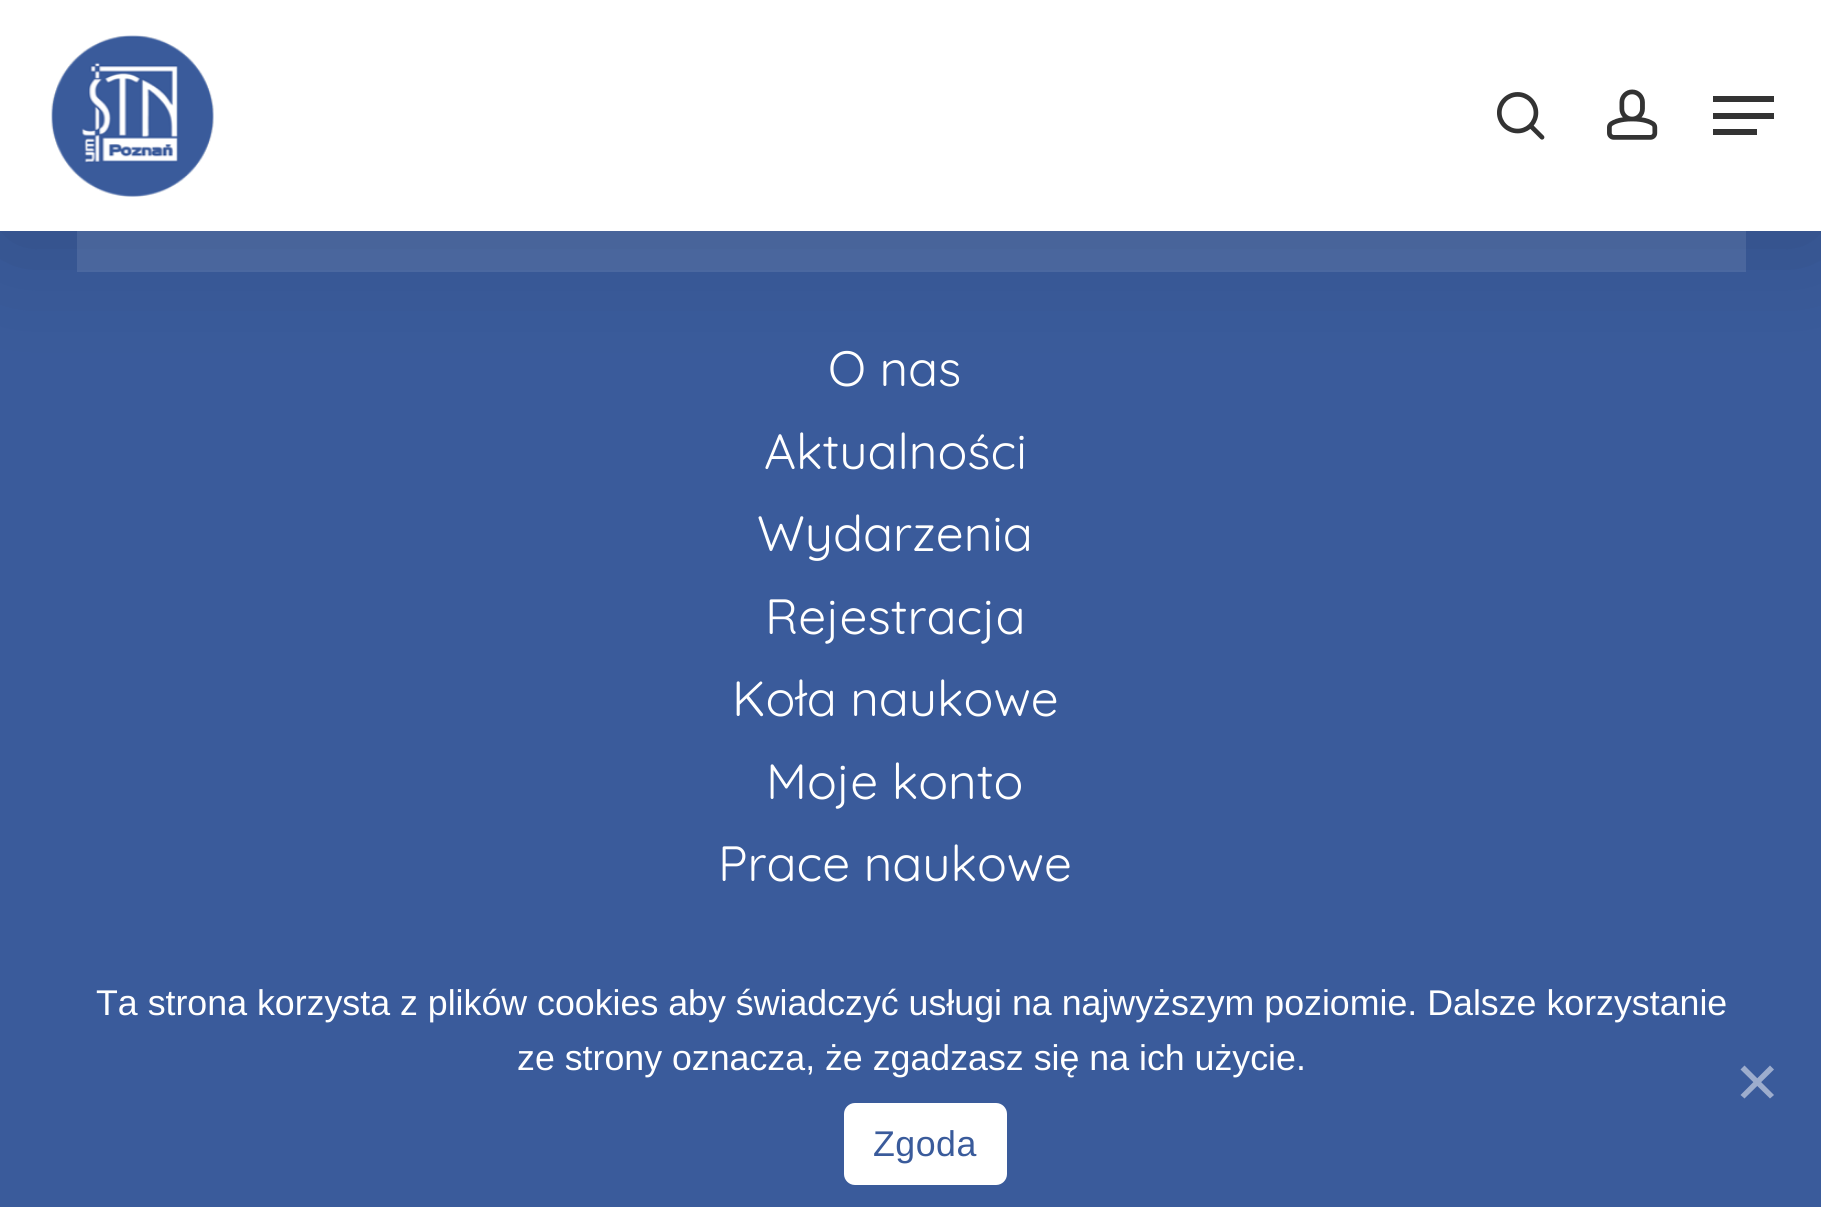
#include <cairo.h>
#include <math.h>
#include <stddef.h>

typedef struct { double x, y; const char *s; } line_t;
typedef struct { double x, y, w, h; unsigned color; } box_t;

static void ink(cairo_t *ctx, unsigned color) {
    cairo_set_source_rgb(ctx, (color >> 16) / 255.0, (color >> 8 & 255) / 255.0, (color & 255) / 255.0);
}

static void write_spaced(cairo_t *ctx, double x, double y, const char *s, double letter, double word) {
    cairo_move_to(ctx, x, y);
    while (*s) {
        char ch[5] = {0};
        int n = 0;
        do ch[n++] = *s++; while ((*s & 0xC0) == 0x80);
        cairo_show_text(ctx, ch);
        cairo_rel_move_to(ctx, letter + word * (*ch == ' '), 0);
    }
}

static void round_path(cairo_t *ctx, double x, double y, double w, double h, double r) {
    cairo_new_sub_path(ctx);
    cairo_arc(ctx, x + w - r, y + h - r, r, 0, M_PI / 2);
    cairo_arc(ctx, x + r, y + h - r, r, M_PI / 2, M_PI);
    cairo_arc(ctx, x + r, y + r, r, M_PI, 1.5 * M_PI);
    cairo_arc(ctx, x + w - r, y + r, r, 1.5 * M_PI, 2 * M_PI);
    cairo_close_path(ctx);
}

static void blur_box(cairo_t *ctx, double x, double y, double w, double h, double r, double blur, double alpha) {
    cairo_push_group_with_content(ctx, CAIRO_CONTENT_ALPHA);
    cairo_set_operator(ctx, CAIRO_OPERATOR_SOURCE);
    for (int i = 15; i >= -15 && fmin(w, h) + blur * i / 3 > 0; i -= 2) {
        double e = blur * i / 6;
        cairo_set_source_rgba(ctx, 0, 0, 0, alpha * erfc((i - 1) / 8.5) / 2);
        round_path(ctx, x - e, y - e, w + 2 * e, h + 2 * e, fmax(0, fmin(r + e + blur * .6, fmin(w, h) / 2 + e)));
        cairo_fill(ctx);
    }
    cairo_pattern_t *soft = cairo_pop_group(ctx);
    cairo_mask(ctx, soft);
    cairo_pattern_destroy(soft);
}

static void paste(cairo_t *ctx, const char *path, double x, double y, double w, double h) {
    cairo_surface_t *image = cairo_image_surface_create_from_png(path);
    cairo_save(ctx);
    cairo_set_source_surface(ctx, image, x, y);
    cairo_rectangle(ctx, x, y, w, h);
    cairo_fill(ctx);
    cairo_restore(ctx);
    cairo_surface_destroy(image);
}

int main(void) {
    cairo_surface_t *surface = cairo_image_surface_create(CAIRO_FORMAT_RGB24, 1821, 1207);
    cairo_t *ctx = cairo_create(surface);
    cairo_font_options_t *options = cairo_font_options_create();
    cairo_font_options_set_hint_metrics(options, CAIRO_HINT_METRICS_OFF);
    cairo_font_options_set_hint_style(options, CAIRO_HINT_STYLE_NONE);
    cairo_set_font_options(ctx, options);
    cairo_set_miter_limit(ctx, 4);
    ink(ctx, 0x3A5B9B);
    cairo_paint(ctx);
    ink(ctx, 0x4E6CA6);
    cairo_rectangle(ctx, 77, 231, 1669, 41);
    cairo_fill(ctx);
    ink(ctx, 0x000000);
    blur_box(ctx, 0, 8, 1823, 231, 0, 62, 0.15);
    ink(ctx, 0xFFFFFF);
    cairo_rectangle(ctx, 0, 0, 1821, 231);
    cairo_fill(ctx);
    paste(ctx, "media/1.png", 51, 35, 163, 162);
    paste(ctx, "media/2.png", 1497, 92, 48, 48);
    paste(ctx, "media/3.png", 1607, 89, 51, 51);
    {
        static const box_t items[] = {
            {1713, 96, 61, 6, 0x333333},
            {1713, 129, 44, 6, 0x333333},
            {1713, 113, 61, 6, 0x333333},
        };
        for (size_t i = 0; i < sizeof items / sizeof *items; i++) {
            ink(ctx, items[i].color);
            cairo_rectangle(ctx, items[i].x, items[i].y, items[i].w, items[i].h);
            cairo_fill(ctx);
        }
    }
    cairo_select_font_face(ctx, "Quicksand", CAIRO_FONT_SLANT_NORMAL, CAIRO_FONT_WEIGHT_NORMAL);
    cairo_set_font_size(ctx, 49.5);
    ink(ctx, 0xFFFFFF);
    {
        static const line_t items[] = {
            {828, 386, "O nas"},
            {764, 469, "Aktualności"},
            {757, 551, "Wydarzenia"},
            {765, 634, "Rejestracja"},
            {732, 716, "Koła naukowe"},
            {766, 799, "Moje konto"},
            {718, 881, "Prace naukowe"},
        };
        for (size_t i = 0; i < sizeof items / sizeof *items; i++) {
            cairo_move_to(ctx, items[i].x, items[i].y);
            cairo_show_text(ctx, items[i].s);
        }
    }
    cairo_select_font_face(ctx, "Liberation Sans", CAIRO_FONT_SLANT_NORMAL, CAIRO_FONT_WEIGHT_NORMAL);
    cairo_set_font_size(ctx, 35.75);
    cairo_move_to(ctx, 96, 1015);
    cairo_show_text(ctx, "Ta strona korzysta z plików cookies aby świadczyć usługi na najwyższym poziomie. Dalsze korzystanie");
    cairo_move_to(ctx, 517, 1070);
    cairo_show_text(ctx, "ze strony oznacza, że zgadzasz się na ich użycie.");
    ink(ctx, 0x9DADCD);
    cairo_new_path(ctx);
    cairo_move_to(ctx, 1770, 1065.5);
    cairo_line_to(ctx, 1774, 1069.5);
    cairo_line_to(ctx, 1744.5, 1098.5);
    cairo_line_to(ctx, 1740.5, 1095);
    cairo_close_path(ctx);
    cairo_fill(ctx);
    cairo_new_path(ctx);
    cairo_move_to(ctx, 1740.5, 1069.5);
    cairo_line_to(ctx, 1744.5, 1065.5);
    cairo_line_to(ctx, 1774, 1095);
    cairo_line_to(ctx, 1770, 1098.5);
    cairo_close_path(ctx);
    cairo_fill(ctx);
    ink(ctx, 0xFFFFFF);
    round_path(ctx, 844, 1103, 163, 82, 11);
    cairo_fill(ctx);
    ink(ctx, 0x3A5B9B);
    write_spaced(ctx, 873, 1156, "Zgoda", 0.5, 0);
    cairo_surface_write_to_png(surface, "image.png");
    cairo_font_options_destroy(options);
    cairo_destroy(ctx);
    cairo_surface_destroy(surface);
    return 0;
}
